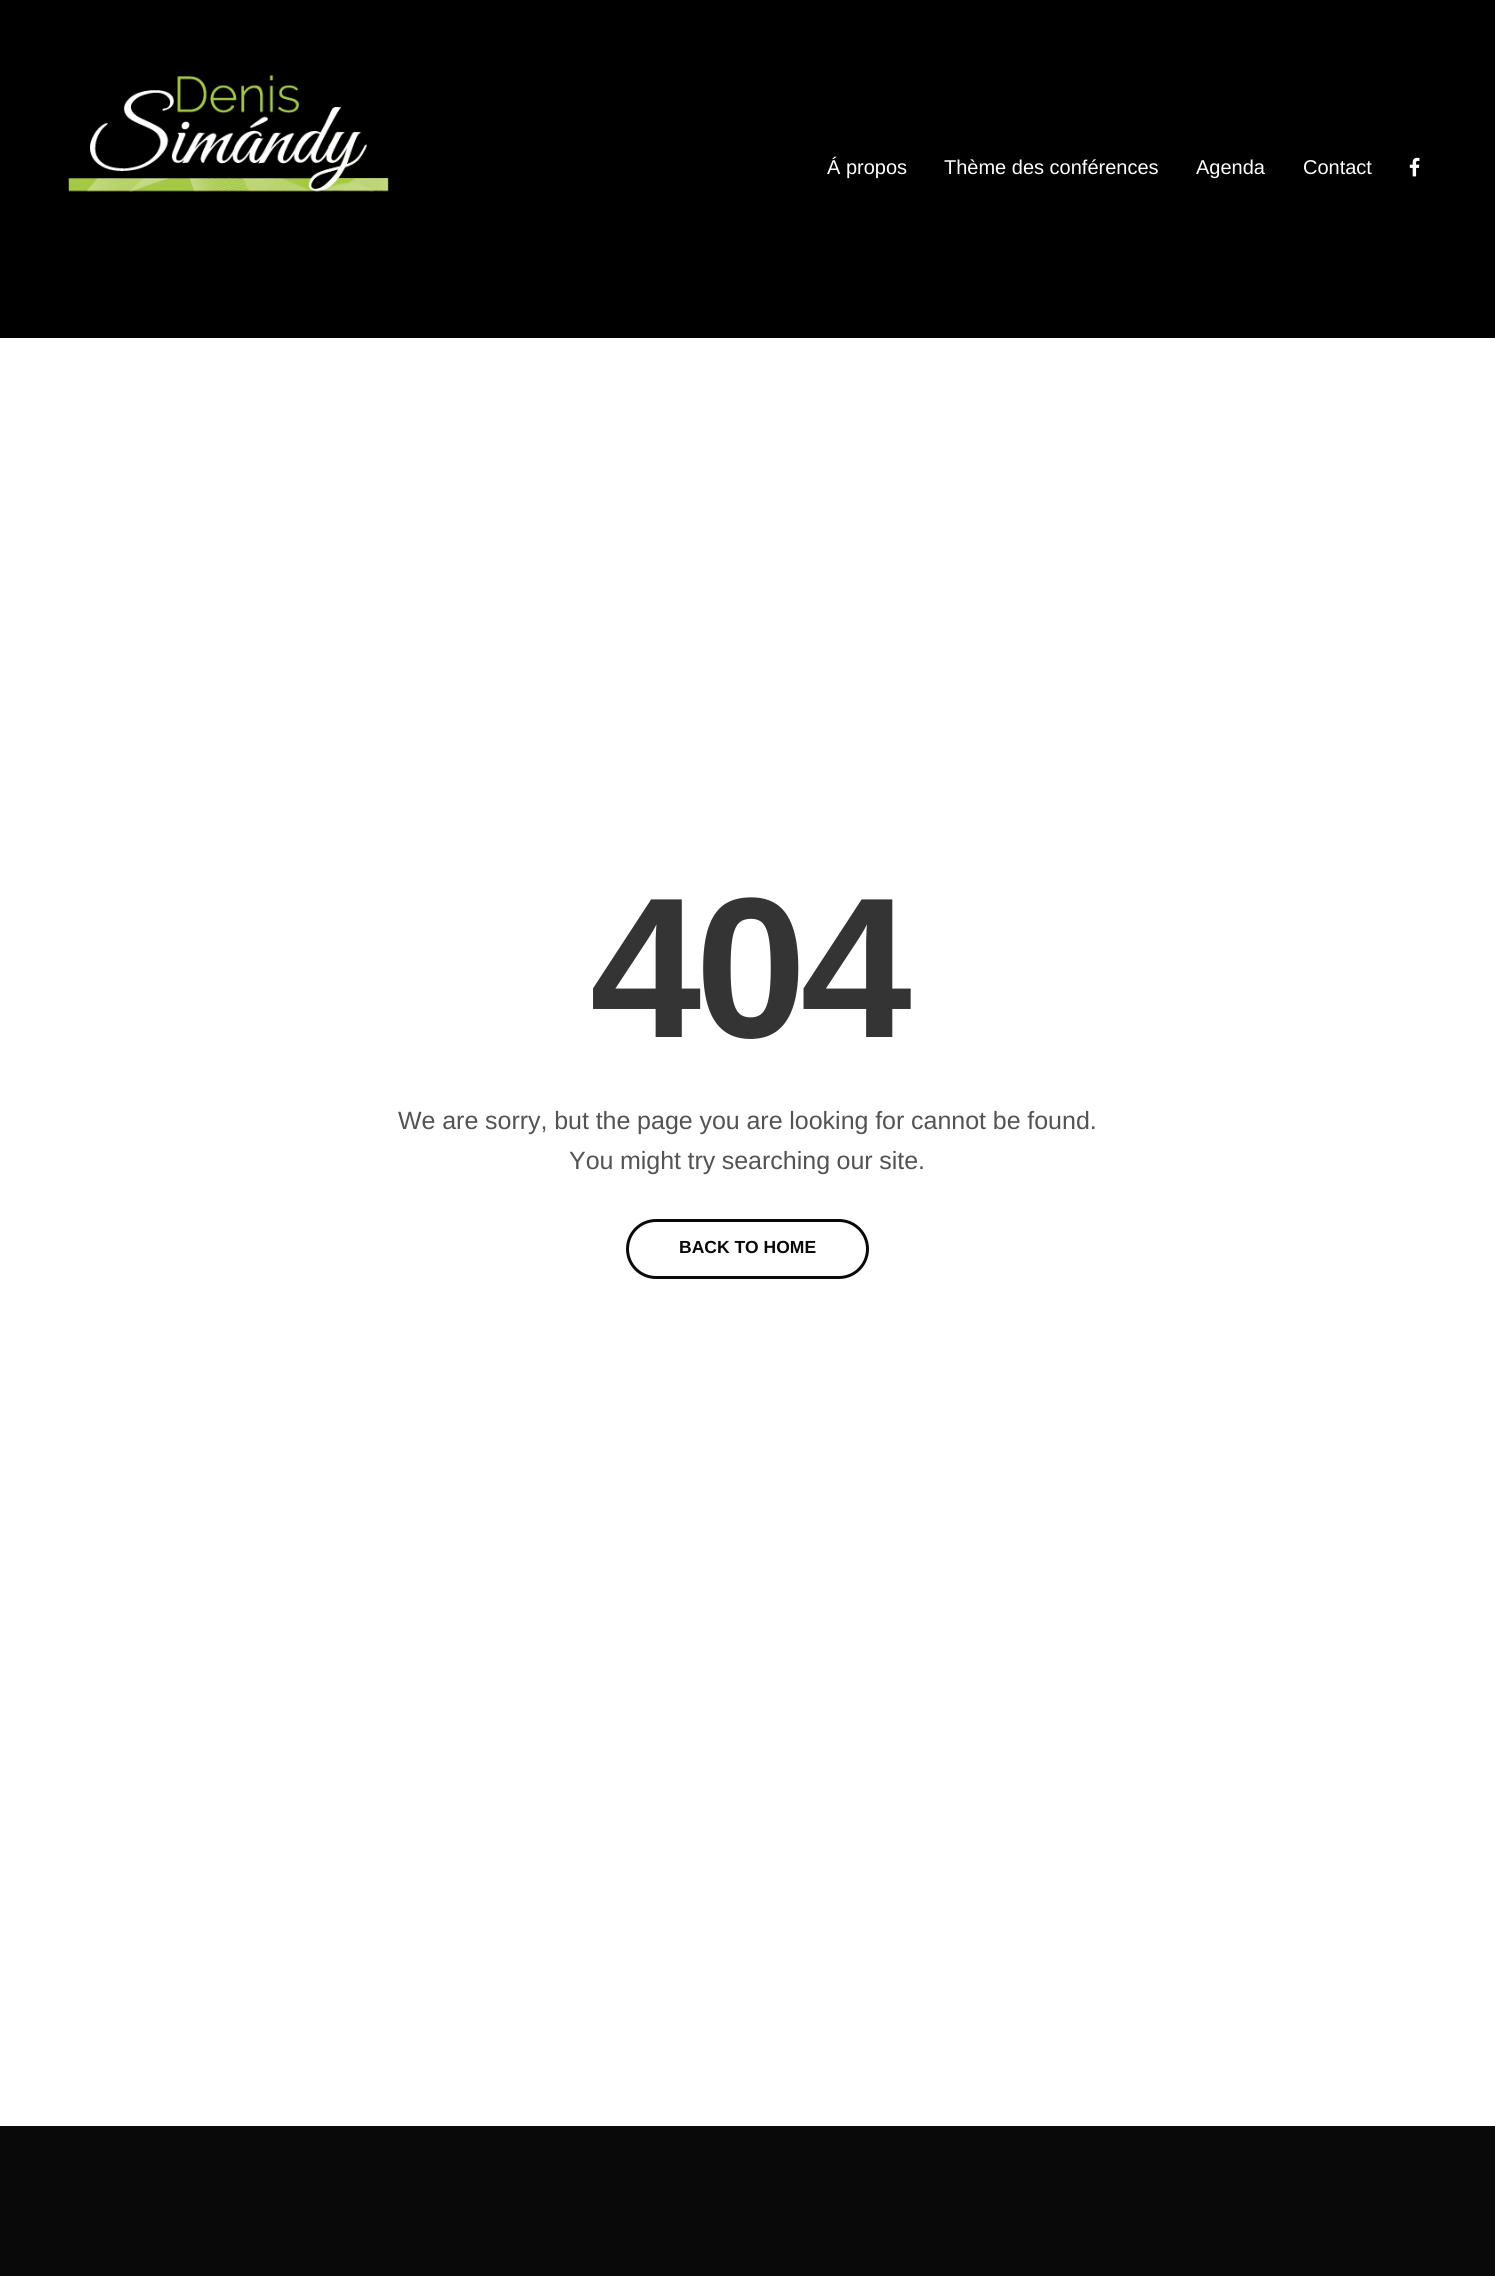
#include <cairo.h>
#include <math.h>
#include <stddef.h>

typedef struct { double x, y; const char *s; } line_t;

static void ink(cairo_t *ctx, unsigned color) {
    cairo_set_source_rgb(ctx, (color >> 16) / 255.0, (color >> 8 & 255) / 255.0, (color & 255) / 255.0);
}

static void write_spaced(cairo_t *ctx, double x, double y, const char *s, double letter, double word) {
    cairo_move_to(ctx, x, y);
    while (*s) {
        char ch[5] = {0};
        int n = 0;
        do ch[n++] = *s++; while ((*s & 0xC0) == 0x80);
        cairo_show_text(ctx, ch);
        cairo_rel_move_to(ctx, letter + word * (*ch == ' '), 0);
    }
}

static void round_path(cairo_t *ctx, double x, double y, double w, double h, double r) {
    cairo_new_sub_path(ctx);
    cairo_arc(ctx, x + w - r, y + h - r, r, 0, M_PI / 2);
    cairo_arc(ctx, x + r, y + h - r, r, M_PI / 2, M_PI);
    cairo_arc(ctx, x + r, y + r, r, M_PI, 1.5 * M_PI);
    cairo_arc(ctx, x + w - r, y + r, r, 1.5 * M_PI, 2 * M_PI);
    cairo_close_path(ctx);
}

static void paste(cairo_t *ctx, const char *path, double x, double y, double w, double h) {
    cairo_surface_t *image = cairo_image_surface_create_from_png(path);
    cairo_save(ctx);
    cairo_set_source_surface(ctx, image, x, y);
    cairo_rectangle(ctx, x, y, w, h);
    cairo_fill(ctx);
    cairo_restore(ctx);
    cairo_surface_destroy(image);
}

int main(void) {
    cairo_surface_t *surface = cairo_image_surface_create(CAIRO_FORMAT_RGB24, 1495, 2276);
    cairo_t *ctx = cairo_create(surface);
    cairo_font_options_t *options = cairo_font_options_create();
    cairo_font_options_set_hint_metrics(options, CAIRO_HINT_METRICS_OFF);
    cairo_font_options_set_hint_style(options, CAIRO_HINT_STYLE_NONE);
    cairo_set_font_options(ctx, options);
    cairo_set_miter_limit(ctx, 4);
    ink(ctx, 0xFFFFFF);
    cairo_paint(ctx);
    ink(ctx, 0x000000);
    cairo_rectangle(ctx, 0, 0, 1495, 338);
    cairo_fill(ctx);
    paste(ctx, "media/1.png", 68, 75, 321, 117);
    cairo_select_font_face(ctx, "Liberation Sans", CAIRO_FONT_SLANT_NORMAL, CAIRO_FONT_WEIGHT_NORMAL);
    cairo_set_font_size(ctx, 20);
    ink(ctx, 0xFFFFFF);
    {
        static const line_t items[] = {
            {827, 174, "Á propos"},
            {944, 174, "Thème des conférences"},
            {1196, 174, "Agenda"},
            {1303, 174, "Contact"},
        };
        for (size_t i = 0; i < sizeof items / sizeof *items; i++) {
            cairo_move_to(ctx, items[i].x, items[i].y);
            cairo_show_text(ctx, items[i].s);
        }
    }
    paste(ctx, "media/2.png", 1409, 157, 11, 20);
    cairo_select_font_face(ctx, "Liberation Sans", CAIRO_FONT_SLANT_NORMAL, CAIRO_FONT_WEIGHT_BOLD);
    cairo_set_font_size(ctx, 200);
    ink(ctx, 0x343434);
    write_spaced(ctx, 590, 1037, "404", -6, 0);
    cairo_select_font_face(ctx, "Liberation Sans", CAIRO_FONT_SLANT_NORMAL, CAIRO_FONT_WEIGHT_NORMAL);
    cairo_set_font_size(ctx, 25);
    ink(ctx, 0x535353);
    write_spaced(ctx, 398, 1129, "We are sorry, but the page you are looking for cannot be found.", 0, -0.25);
    write_spaced(ctx, 569, 1169, "You might try searching our site.", 0, -0.5);
    round_path(ctx, 627.5, 1220.5, 240, 57, 28.5);
    ink(ctx, 0x090909);
    cairo_set_line_width(ctx, 3);
    cairo_stroke(ctx);
    cairo_select_font_face(ctx, "Liberation Sans", CAIRO_FONT_SLANT_NORMAL, CAIRO_FONT_WEIGHT_BOLD);
    cairo_set_font_size(ctx, 17.5);
    cairo_move_to(ctx, 679, 1253);
    cairo_show_text(ctx, "BACK TO HOME");
    cairo_rectangle(ctx, 0, 2126, 1495, 150);
    cairo_fill(ctx);
    cairo_surface_write_to_png(surface, "image.png");
    cairo_font_options_destroy(options);
    cairo_destroy(ctx);
    cairo_surface_destroy(surface);
    return 0;
}
